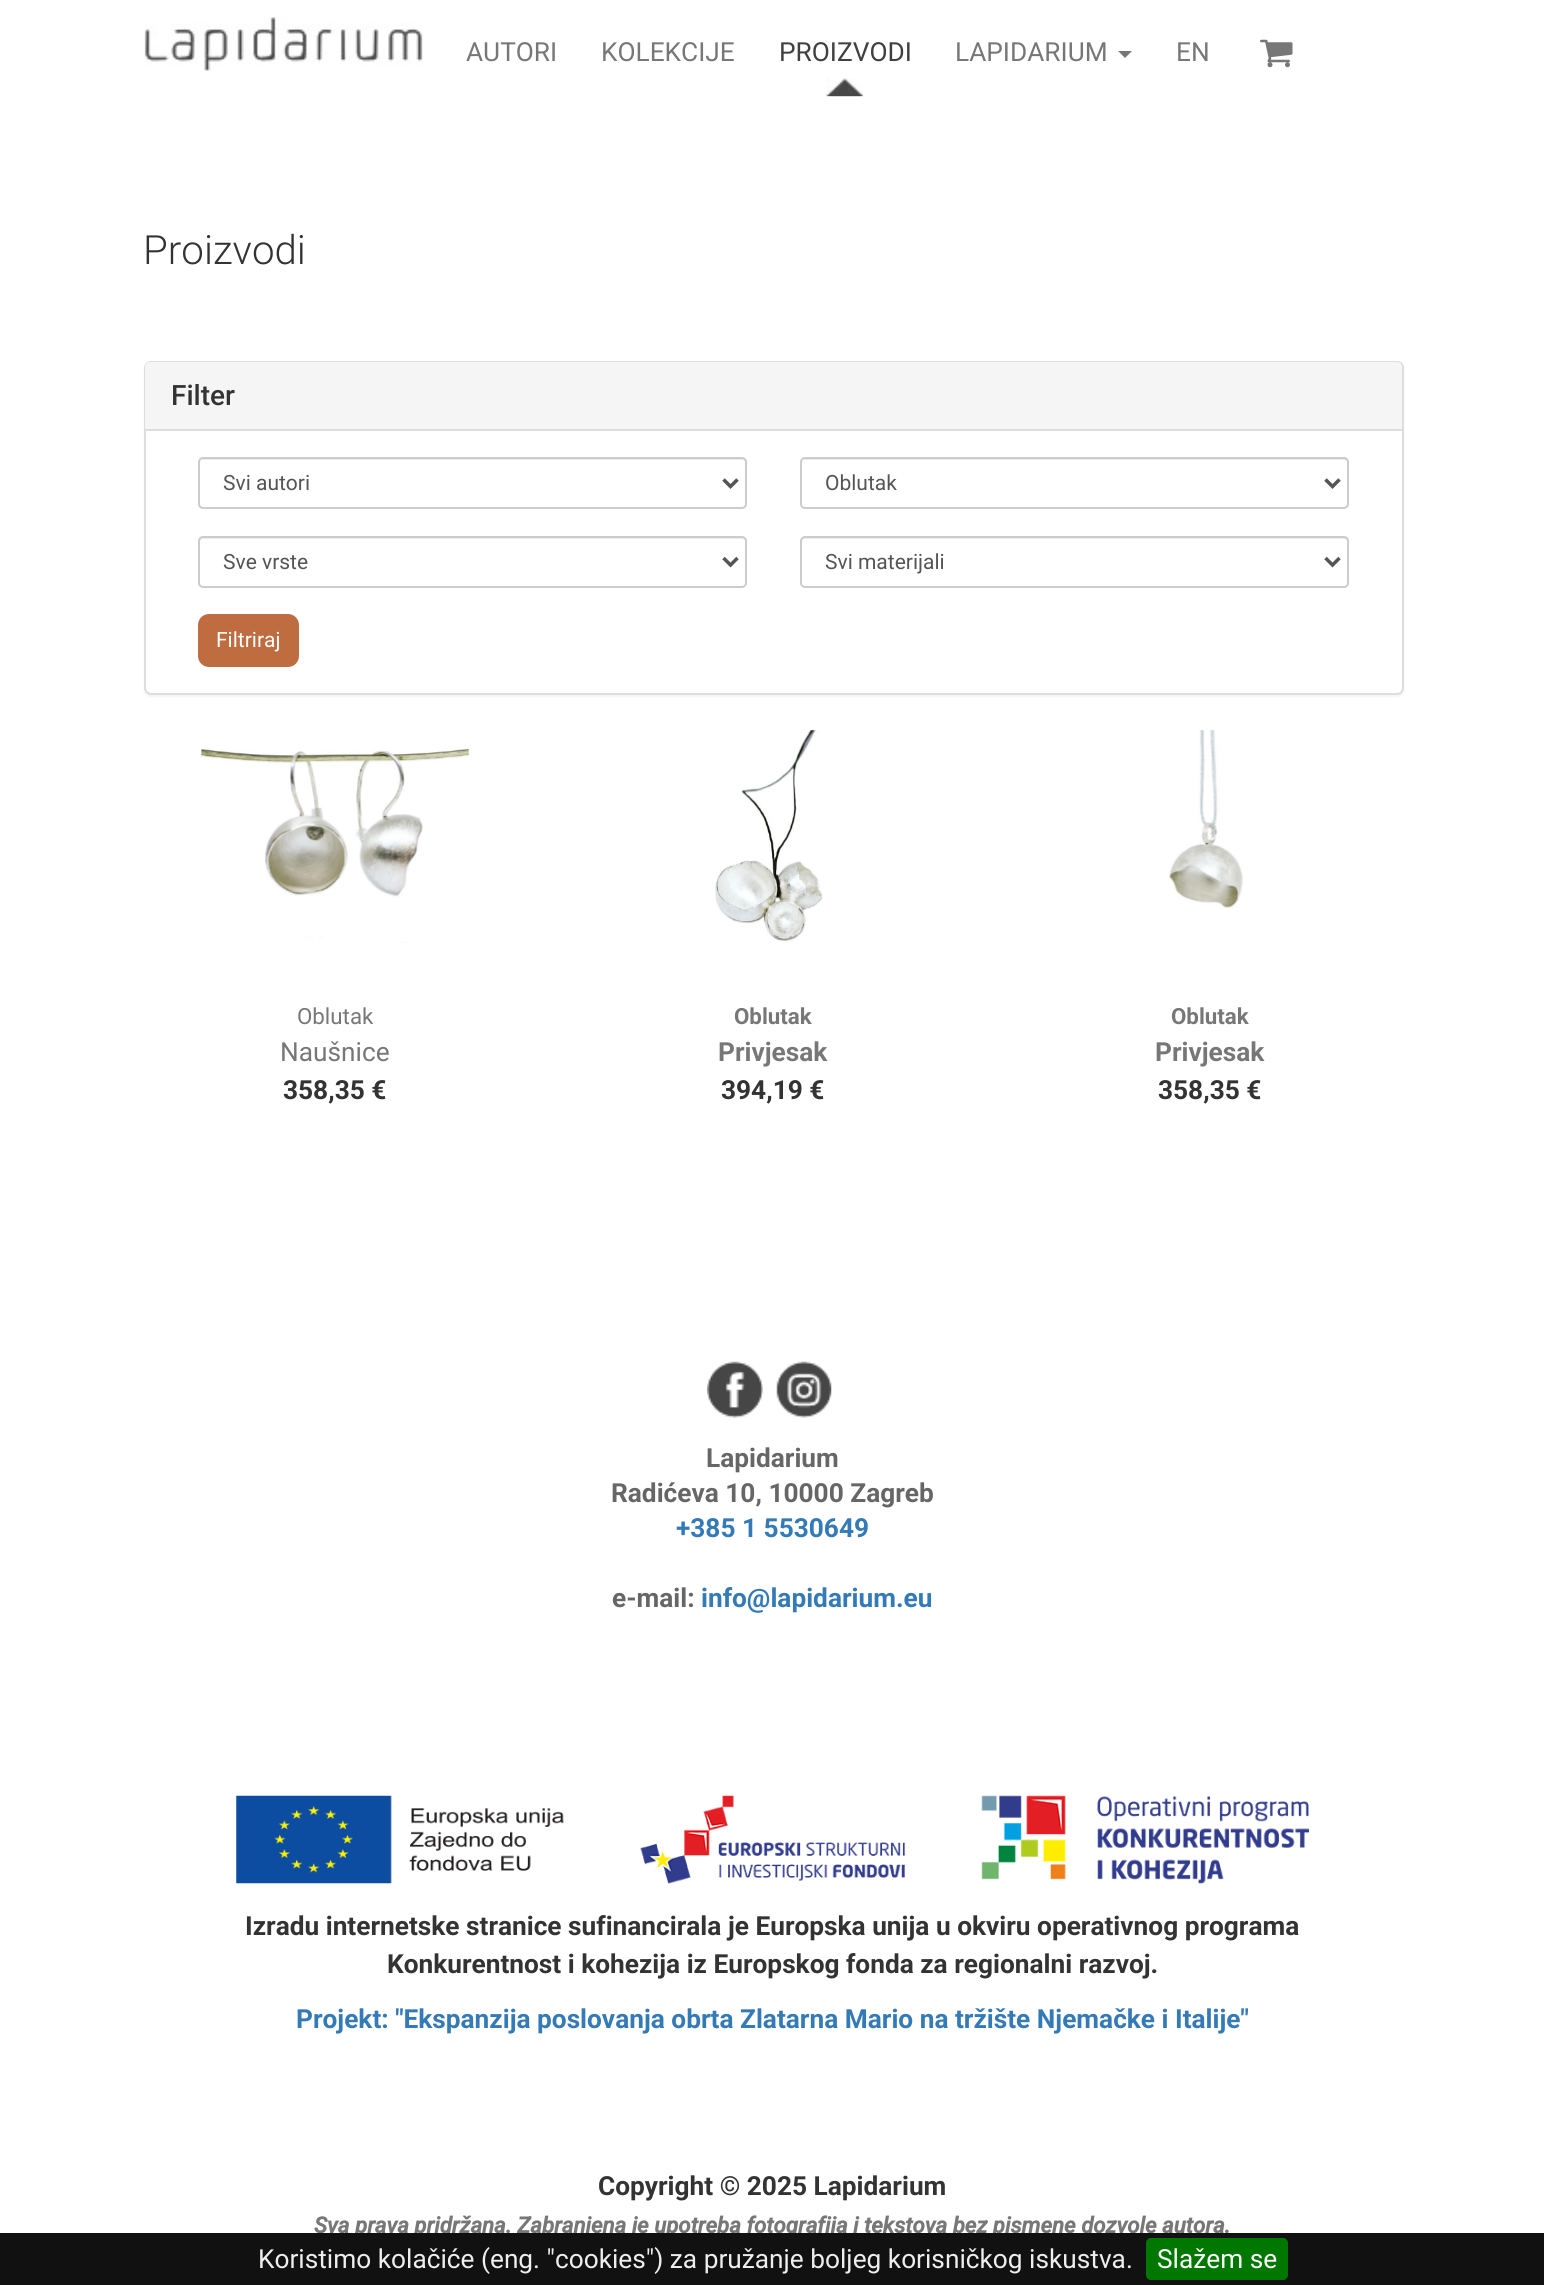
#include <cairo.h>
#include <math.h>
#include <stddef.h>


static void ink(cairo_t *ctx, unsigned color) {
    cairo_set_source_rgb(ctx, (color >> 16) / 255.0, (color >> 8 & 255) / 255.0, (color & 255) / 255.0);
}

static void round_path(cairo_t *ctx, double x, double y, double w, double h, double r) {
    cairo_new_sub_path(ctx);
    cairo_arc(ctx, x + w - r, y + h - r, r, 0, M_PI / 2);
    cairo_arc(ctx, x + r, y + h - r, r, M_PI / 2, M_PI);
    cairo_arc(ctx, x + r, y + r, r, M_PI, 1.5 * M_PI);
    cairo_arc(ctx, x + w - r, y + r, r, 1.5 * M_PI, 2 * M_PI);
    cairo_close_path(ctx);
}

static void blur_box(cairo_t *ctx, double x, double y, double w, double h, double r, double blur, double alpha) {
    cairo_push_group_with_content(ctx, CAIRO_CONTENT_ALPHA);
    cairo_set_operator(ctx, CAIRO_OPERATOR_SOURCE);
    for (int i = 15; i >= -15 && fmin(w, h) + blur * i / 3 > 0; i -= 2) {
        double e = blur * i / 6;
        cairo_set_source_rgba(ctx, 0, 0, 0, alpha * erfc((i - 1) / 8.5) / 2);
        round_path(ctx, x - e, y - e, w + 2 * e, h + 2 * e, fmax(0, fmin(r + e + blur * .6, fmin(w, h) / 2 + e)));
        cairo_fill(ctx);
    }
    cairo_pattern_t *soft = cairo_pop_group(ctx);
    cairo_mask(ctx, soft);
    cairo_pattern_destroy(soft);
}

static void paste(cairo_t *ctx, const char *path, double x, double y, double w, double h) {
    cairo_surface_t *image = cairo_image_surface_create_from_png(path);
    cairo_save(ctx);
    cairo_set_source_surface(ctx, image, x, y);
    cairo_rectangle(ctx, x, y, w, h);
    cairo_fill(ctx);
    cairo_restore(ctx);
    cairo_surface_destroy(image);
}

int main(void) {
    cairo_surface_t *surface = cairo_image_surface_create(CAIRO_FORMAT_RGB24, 1544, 2285);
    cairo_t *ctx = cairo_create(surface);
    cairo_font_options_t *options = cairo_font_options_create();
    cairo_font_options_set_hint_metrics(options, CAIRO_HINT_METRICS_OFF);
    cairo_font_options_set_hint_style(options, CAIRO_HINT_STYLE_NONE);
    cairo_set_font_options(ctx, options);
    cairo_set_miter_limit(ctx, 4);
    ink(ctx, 0xFFFFFF);
    cairo_paint(ctx);
    paste(ctx, "media/1.png", 144, 17, 279, 55);
    cairo_select_font_face(ctx, "Roboto", CAIRO_FONT_SLANT_NORMAL, CAIRO_FONT_WEIGHT_NORMAL);
    cairo_set_font_size(ctx, 26.25);
    ink(ctx, 0x777777);
    cairo_move_to(ctx, 466, 61);
    cairo_show_text(ctx, "AUTORI");
    cairo_move_to(ctx, 601, 61);
    cairo_show_text(ctx, "KOLEKCIJE");
    paste(ctx, "media/2.png", 826, 78, 37, 19);
    ink(ctx, 0x404040);
    cairo_move_to(ctx, 779, 61);
    cairo_show_text(ctx, "PROIZVODI");
    ink(ctx, 0x777777);
    cairo_move_to(ctx, 955, 61);
    cairo_show_text(ctx, "LAPIDARIUM");
    cairo_new_path(ctx);
    cairo_move_to(ctx, 1118, 51);
    cairo_line_to(ctx, 1132, 51);
    cairo_line_to(ctx, 1125, 58);
    cairo_close_path(ctx);
    cairo_fill(ctx);
    cairo_move_to(ctx, 1176, 61);
    cairo_show_text(ctx, "EN");
    paste(ctx, "media/3.png", 1260, 39, 33, 29);
    cairo_select_font_face(ctx, "Roboto Light", CAIRO_FONT_SLANT_NORMAL, CAIRO_FONT_WEIGHT_NORMAL);
    cairo_set_font_size(ctx, 40.25);
    ink(ctx, 0x333333);
    cairo_move_to(ctx, 143, 264);
    cairo_show_text(ctx, "Proizvodi");
    ink(ctx, 0x000000);
    blur_box(ctx, 144, 362, 1260, 335, 7, 1, 0.05);
    ink(ctx, 0xFFFFFF);
    round_path(ctx, 145, 362, 1258, 332, 6);
    cairo_fill_preserve(ctx);
    ink(ctx, 0xDDDDDD);
    cairo_stroke(ctx);
    ink(ctx, 0xF5F5F5);
    cairo_new_path(ctx);
    cairo_move_to(ctx, 150, 362);
    cairo_line_to(ctx, 1397, 362);
    cairo_curve_to(ctx, 1400, 362, 1402, 364, 1402, 367);
    cairo_line_to(ctx, 1402, 429);
    cairo_line_to(ctx, 145, 429);
    cairo_line_to(ctx, 145, 367);
    cairo_curve_to(ctx, 145, 364, 147, 362, 150, 362);
    cairo_close_path(ctx);
    cairo_fill(ctx);
    cairo_select_font_face(ctx, "Roboto Medium", CAIRO_FONT_SLANT_NORMAL, CAIRO_FONT_WEIGHT_NORMAL);
    cairo_set_font_size(ctx, 28);
    ink(ctx, 0x333333);
    cairo_move_to(ctx, 171, 405);
    cairo_show_text(ctx, "Filter");
    ink(ctx, 0xDDDDDD);
    cairo_rectangle(ctx, 145, 429, 1257, 2);
    cairo_fill(ctx);
    ink(ctx, 0xECECEC);
    cairo_new_path(ctx);
    cairo_move_to(ctx, 203, 460);
    cairo_line_to(ctx, 742, 460);
    cairo_curve_to(ctx, 744, 460, 746, 462, 746, 464);
    cairo_line_to(ctx, 746, 463);
    cairo_curve_to(ctx, 746, 461, 744, 459, 742, 459);
    cairo_line_to(ctx, 204, 459);
    cairo_curve_to(ctx, 202, 459, 200, 461, 200, 463);
    cairo_line_to(ctx, 200, 464);
    cairo_curve_to(ctx, 200, 462, 201, 460, 203, 460);
    cairo_close_path(ctx);
    cairo_fill(ctx);
    round_path(ctx, 199, 458, 547, 50, 4);
    ink(ctx, 0xCCCCCC);
    cairo_stroke(ctx);
    cairo_new_path(ctx);
    cairo_move_to(ctx, 723.5, 479.5);
    cairo_line_to(ctx, 730.5, 486.5);
    cairo_line_to(ctx, 737.5, 479.5);
    ink(ctx, 0x555555);
    cairo_set_line_width(ctx, 3.5);
    cairo_stroke(ctx);
    cairo_select_font_face(ctx, "Roboto", CAIRO_FONT_SLANT_NORMAL, CAIRO_FONT_WEIGHT_NORMAL);
    cairo_set_font_size(ctx, 21);
    cairo_move_to(ctx, 223, 490);
    cairo_show_text(ctx, "Svi autori");
    ink(ctx, 0xECECEC);
    cairo_new_path(ctx);
    cairo_move_to(ctx, 805, 460);
    cairo_line_to(ctx, 1344, 460);
    cairo_curve_to(ctx, 1346, 460, 1348, 462, 1348, 464);
    cairo_line_to(ctx, 1348, 463);
    cairo_curve_to(ctx, 1348, 461, 1346, 459, 1344, 459);
    cairo_line_to(ctx, 806, 459);
    cairo_curve_to(ctx, 804, 459, 802, 461, 802, 463);
    cairo_line_to(ctx, 802, 464);
    cairo_curve_to(ctx, 802, 462, 803, 460, 805, 460);
    cairo_close_path(ctx);
    cairo_fill(ctx);
    round_path(ctx, 801, 458, 547, 50, 4);
    ink(ctx, 0xCCCCCC);
    cairo_set_line_width(ctx, 2);
    cairo_stroke(ctx);
    cairo_new_path(ctx);
    cairo_move_to(ctx, 1325.5, 479.5);
    cairo_line_to(ctx, 1332.5, 486.5);
    cairo_line_to(ctx, 1339.5, 479.5);
    ink(ctx, 0x555555);
    cairo_set_line_width(ctx, 3.5);
    cairo_stroke(ctx);
    cairo_move_to(ctx, 825, 490);
    cairo_show_text(ctx, "Oblutak");
    ink(ctx, 0xECECEC);
    cairo_new_path(ctx);
    cairo_move_to(ctx, 203, 539);
    cairo_line_to(ctx, 742, 539);
    cairo_curve_to(ctx, 744, 539, 746, 541, 746, 542);
    cairo_line_to(ctx, 746, 541);
    cairo_curve_to(ctx, 746, 539, 744, 537, 742, 537);
    cairo_line_to(ctx, 204, 537);
    cairo_curve_to(ctx, 202, 537, 200, 539, 200, 541);
    cairo_line_to(ctx, 200, 542);
    cairo_curve_to(ctx, 200, 541, 201, 539, 203, 539);
    cairo_close_path(ctx);
    cairo_fill(ctx);
    round_path(ctx, 199, 537, 547, 50, 4);
    ink(ctx, 0xCCCCCC);
    cairo_set_line_width(ctx, 2);
    cairo_stroke(ctx);
    cairo_new_path(ctx);
    cairo_move_to(ctx, 723.5, 558);
    cairo_line_to(ctx, 730.5, 565);
    cairo_line_to(ctx, 737.5, 558);
    ink(ctx, 0x555555);
    cairo_set_line_width(ctx, 3.5);
    cairo_stroke(ctx);
    cairo_move_to(ctx, 223, 569);
    cairo_show_text(ctx, "Sve vrste");
    ink(ctx, 0xECECEC);
    cairo_new_path(ctx);
    cairo_move_to(ctx, 805, 539);
    cairo_line_to(ctx, 1344, 539);
    cairo_curve_to(ctx, 1346, 539, 1348, 541, 1348, 542);
    cairo_line_to(ctx, 1348, 541);
    cairo_curve_to(ctx, 1348, 539, 1346, 537, 1344, 537);
    cairo_line_to(ctx, 806, 537);
    cairo_curve_to(ctx, 804, 537, 802, 539, 802, 541);
    cairo_line_to(ctx, 802, 542);
    cairo_curve_to(ctx, 802, 541, 803, 539, 805, 539);
    cairo_close_path(ctx);
    cairo_fill(ctx);
    round_path(ctx, 801, 537, 547, 50, 4);
    ink(ctx, 0xCCCCCC);
    cairo_set_line_width(ctx, 2);
    cairo_stroke(ctx);
    cairo_new_path(ctx);
    cairo_move_to(ctx, 1325.5, 558);
    cairo_line_to(ctx, 1332.5, 565);
    cairo_line_to(ctx, 1339.5, 558);
    ink(ctx, 0x555555);
    cairo_set_line_width(ctx, 3.5);
    cairo_stroke(ctx);
    cairo_move_to(ctx, 825, 569);
    cairo_show_text(ctx, "Svi materijali");
    ink(ctx, 0xBF6D40);
    round_path(ctx, 199, 615, 99, 51, 10);
    cairo_fill_preserve(ctx);
    cairo_set_line_width(ctx, 2);
    cairo_stroke(ctx);
    ink(ctx, 0xFFFFFF);
    cairo_move_to(ctx, 216, 647);
    cairo_show_text(ctx, "Filtriraj");
    paste(ctx, "media/4.png", 201, 746, 268, 197);
    cairo_set_font_size(ctx, 22.3);
    ink(ctx, 0x777777);
    cairo_move_to(ctx, 297, 1024);
    cairo_show_text(ctx, "Oblutak");
    cairo_set_font_size(ctx, 26.25);
    cairo_move_to(ctx, 280, 1061);
    cairo_show_text(ctx, "Naušnice");
    cairo_select_font_face(ctx, "Roboto", CAIRO_FONT_SLANT_NORMAL, CAIRO_FONT_WEIGHT_BOLD);
    ink(ctx, 0x333333);
    cairo_move_to(ctx, 283, 1099);
    cairo_show_text(ctx, "358,35 €");
    paste(ctx, "media/5.png", 715, 730, 108, 212);
    cairo_set_font_size(ctx, 22.3);
    ink(ctx, 0x777777);
    cairo_move_to(ctx, 734, 1024);
    cairo_show_text(ctx, "Oblutak");
    cairo_set_font_size(ctx, 26.25);
    cairo_move_to(ctx, 718, 1061);
    cairo_show_text(ctx, "Privjesak");
    ink(ctx, 0x333333);
    cairo_move_to(ctx, 721, 1099);
    cairo_show_text(ctx, "394,19 €");
    paste(ctx, "media/6.png", 1169, 730, 74, 179);
    cairo_set_font_size(ctx, 22.3);
    ink(ctx, 0x777777);
    cairo_move_to(ctx, 1171, 1024);
    cairo_show_text(ctx, "Oblutak");
    cairo_set_font_size(ctx, 26.25);
    cairo_move_to(ctx, 1155, 1061);
    cairo_show_text(ctx, "Privjesak");
    ink(ctx, 0x333333);
    cairo_move_to(ctx, 1158, 1099);
    cairo_show_text(ctx, "358,35 €");
    paste(ctx, "media/7.png", 707, 1361, 56, 57);
    paste(ctx, "media/8.png", 776, 1361, 56, 57);
    ink(ctx, 0x666666);
    cairo_move_to(ctx, 706, 1467);
    cairo_show_text(ctx, "Lapidarium");
    cairo_move_to(ctx, 611, 1502);
    cairo_show_text(ctx, "Radićeva 10, 10000 Zagreb");
    ink(ctx, 0x337AB7);
    cairo_move_to(ctx, 676, 1537);
    cairo_show_text(ctx, "+385 1 5530649");
    ink(ctx, 0x666666);
    cairo_move_to(ctx, 612, 1607);
    cairo_show_text(ctx, "e-mail:");
    ink(ctx, 0x337AB7);
    cairo_move_to(ctx, 701, 1607);
    cairo_show_text(ctx, "info@lapidarium.eu");
    paste(ctx, "media/9.png", 236, 1795, 328, 89);
    paste(ctx, "media/10.png", 640, 1795, 265, 89);
    paste(ctx, "media/11.png", 981, 1795, 328, 89);
    ink(ctx, 0x333333);
    cairo_move_to(ctx, 245, 1935);
    cairo_show_text(ctx, "Izradu internetske stranice sufinancirala je Europska unija u okviru operativnog programa");
    cairo_move_to(ctx, 387, 1973);
    cairo_show_text(ctx, "Konkurentnost i kohezija iz Europskog fonda za regionalni razvoj.");
    ink(ctx, 0x337AB7);
    cairo_move_to(ctx, 296, 2028);
    cairo_show_text(ctx, "Projekt: \"Ekspanzija poslovanja obrta Zlatarna Mario na tržište Njemačke i Italije\"");
    ink(ctx, 0x333333);
    cairo_move_to(ctx, 598, 2195);
    cairo_show_text(ctx, "Copyright © 2025 Lapidarium");
    cairo_select_font_face(ctx, "Roboto", CAIRO_FONT_SLANT_ITALIC, CAIRO_FONT_WEIGHT_BOLD);
    cairo_set_font_size(ctx, 22.3);
    ink(ctx, 0x777777);
    cairo_move_to(ctx, 314, 2233);
    cairo_show_text(ctx, "Sva prava pridržana. Zabranjena je upotreba fotografija i tekstova bez pismene dozvole autora.");
    ink(ctx, 0x111111);
    cairo_rectangle(ctx, 0, 2233, 1544, 52);
    cairo_fill(ctx);
    cairo_select_font_face(ctx, "Roboto", CAIRO_FONT_SLANT_NORMAL, CAIRO_FONT_WEIGHT_NORMAL);
    cairo_set_font_size(ctx, 26.25);
    ink(ctx, 0xEEEEEE);
    cairo_move_to(ctx, 258, 2268);
    cairo_show_text(ctx, "Koristimo kolačiće (eng. \"cookies\") za pružanje boljeg korisničkog iskustva.");
    ink(ctx, 0x007700);
    round_path(ctx, 1146, 2238, 142, 42, 5);
    cairo_fill(ctx);
    ink(ctx, 0xFFFFFF);
    cairo_move_to(ctx, 1157, 2268);
    cairo_show_text(ctx, "Slažem se");
    cairo_surface_write_to_png(surface, "image.png");
    cairo_font_options_destroy(options);
    cairo_destroy(ctx);
    cairo_surface_destroy(surface);
    return 0;
}
